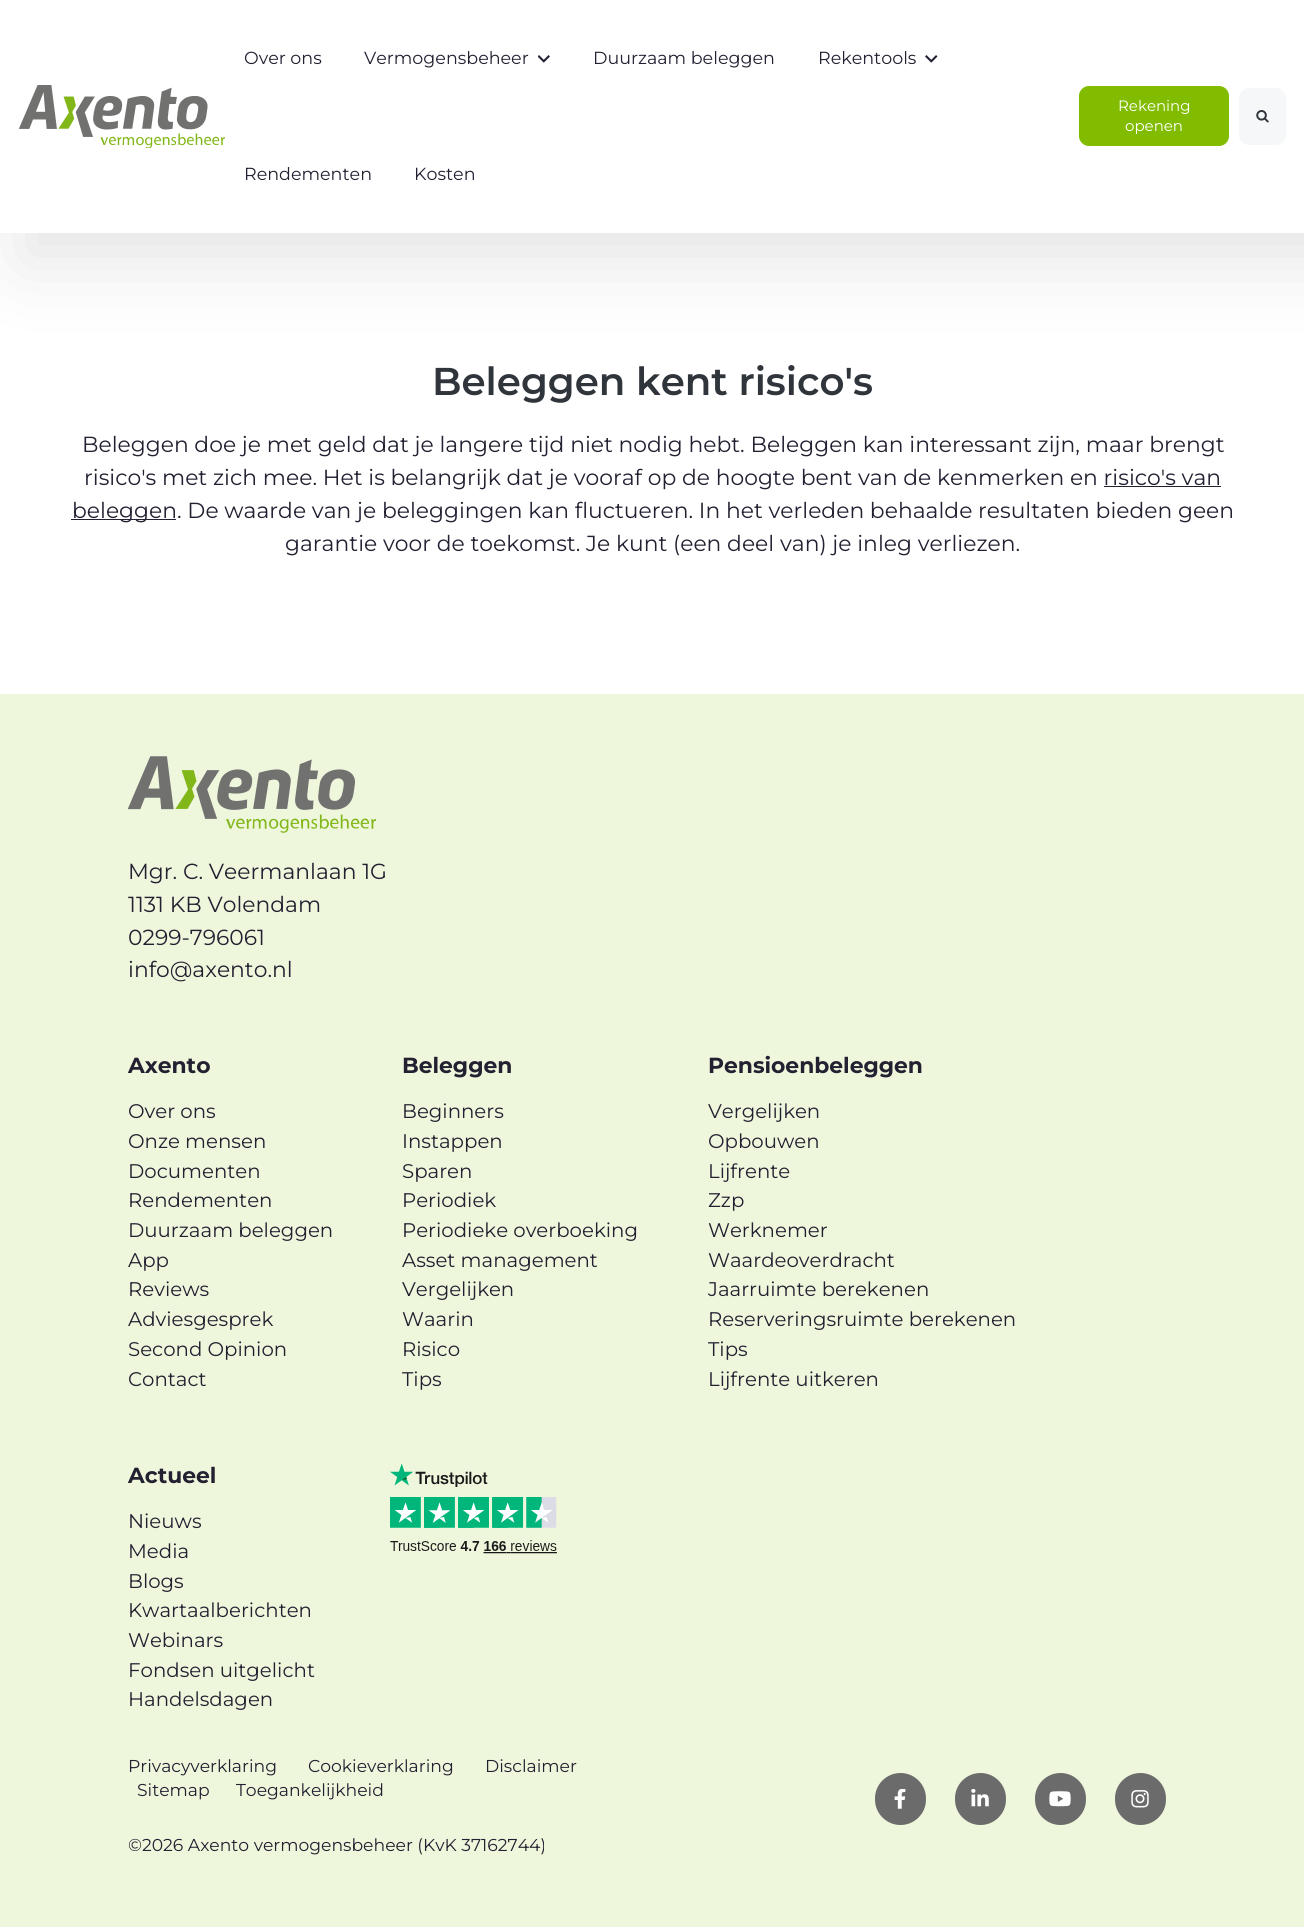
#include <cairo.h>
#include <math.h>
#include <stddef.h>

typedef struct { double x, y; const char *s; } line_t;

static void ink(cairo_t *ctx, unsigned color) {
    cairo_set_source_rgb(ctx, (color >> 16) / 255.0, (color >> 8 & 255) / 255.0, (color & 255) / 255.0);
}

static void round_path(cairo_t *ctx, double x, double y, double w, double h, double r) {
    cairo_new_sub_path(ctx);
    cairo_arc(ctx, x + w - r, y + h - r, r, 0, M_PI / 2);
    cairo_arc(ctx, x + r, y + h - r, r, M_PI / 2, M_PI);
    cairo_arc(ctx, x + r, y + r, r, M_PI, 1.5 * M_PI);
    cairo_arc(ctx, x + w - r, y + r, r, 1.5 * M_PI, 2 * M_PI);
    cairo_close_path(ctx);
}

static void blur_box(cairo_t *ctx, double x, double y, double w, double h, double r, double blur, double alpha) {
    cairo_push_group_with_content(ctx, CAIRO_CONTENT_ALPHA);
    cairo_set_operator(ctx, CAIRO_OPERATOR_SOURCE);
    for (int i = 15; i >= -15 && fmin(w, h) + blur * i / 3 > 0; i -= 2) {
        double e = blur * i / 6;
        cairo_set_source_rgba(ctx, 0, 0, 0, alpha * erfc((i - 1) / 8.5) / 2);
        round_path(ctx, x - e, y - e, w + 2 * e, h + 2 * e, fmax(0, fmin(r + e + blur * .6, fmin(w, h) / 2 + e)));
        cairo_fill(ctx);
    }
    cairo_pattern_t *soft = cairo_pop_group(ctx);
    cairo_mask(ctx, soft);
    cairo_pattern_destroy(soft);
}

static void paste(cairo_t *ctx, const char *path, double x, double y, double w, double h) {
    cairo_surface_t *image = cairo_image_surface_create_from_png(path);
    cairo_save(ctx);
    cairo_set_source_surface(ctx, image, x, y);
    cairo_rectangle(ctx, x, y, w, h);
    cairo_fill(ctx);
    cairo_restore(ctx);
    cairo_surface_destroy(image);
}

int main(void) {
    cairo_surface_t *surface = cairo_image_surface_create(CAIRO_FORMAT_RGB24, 1304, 1927);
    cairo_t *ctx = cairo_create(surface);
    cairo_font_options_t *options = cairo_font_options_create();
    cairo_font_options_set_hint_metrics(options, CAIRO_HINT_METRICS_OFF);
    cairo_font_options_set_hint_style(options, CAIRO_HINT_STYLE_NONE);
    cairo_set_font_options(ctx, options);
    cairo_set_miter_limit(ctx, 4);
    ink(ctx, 0xFFFFFF);
    cairo_paint(ctx);
    ink(ctx, 0x000000);
    blur_box(ctx, 19, 31, 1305, 233, 0, 37.5, 0.1);
    ink(ctx, 0xFFFFFF);
    cairo_rectangle(ctx, 0, 0, 1304, 233);
    cairo_fill(ctx);
    paste(ctx, "media/1.png", 19, 85, 206, 63);
    cairo_select_font_face(ctx, "Montserrat", CAIRO_FONT_SLANT_NORMAL, CAIRO_FONT_WEIGHT_NORMAL);
    cairo_set_font_size(ctx, 17.5);
    ink(ctx, 0x232031);
    cairo_move_to(ctx, 244, 64);
    cairo_show_text(ctx, "Over ons");
    cairo_move_to(ctx, 364, 64);
    cairo_show_text(ctx, "Vermogensbeheer");
    paste(ctx, "media/2.png", 538, 55, 12, 8);
    cairo_move_to(ctx, 593, 64);
    cairo_show_text(ctx, "Duurzaam beleggen");
    cairo_move_to(ctx, 818, 64);
    cairo_show_text(ctx, "Rekentools");
    paste(ctx, "media/3.png", 925, 55, 13, 8);
    cairo_move_to(ctx, 244, 180);
    cairo_show_text(ctx, "Rendementen");
    cairo_move_to(ctx, 414, 180);
    cairo_show_text(ctx, "Kosten");
    ink(ctx, 0x82BC00);
    round_path(ctx, 1079.5, 86.5, 149, 59, 9.5);
    cairo_fill_preserve(ctx);
    cairo_set_line_width(ctx, 1);
    cairo_stroke(ctx);
    cairo_set_font_size(ctx, 15);
    ink(ctx, 0xFFFFFF);
    cairo_move_to(ctx, 1118, 111);
    cairo_show_text(ctx, "Rekening");
    cairo_move_to(ctx, 1125, 131);
    cairo_show_text(ctx, "openen");
    ink(ctx, 0xF5F7F9);
    round_path(ctx, 1239, 88, 47, 57, 10);
    cairo_fill(ctx);
    paste(ctx, "media/4.png", 1256, 110, 13, 13);
    cairo_select_font_face(ctx, "Montserrat SemiBold", CAIRO_FONT_SLANT_NORMAL, CAIRO_FONT_WEIGHT_NORMAL);
    cairo_set_font_size(ctx, 38.75);
    ink(ctx, 0x30343B);
    cairo_move_to(ctx, 432, 395);
    cairo_show_text(ctx, "Beleggen kent risico's");
    cairo_select_font_face(ctx, "Montserrat", CAIRO_FONT_SLANT_NORMAL, CAIRO_FONT_WEIGHT_NORMAL);
    cairo_set_font_size(ctx, 21.85);
    ink(ctx, 0x232031);
    cairo_move_to(ctx, 82, 452);
    cairo_show_text(ctx, "Beleggen doe je met geld dat je langere tijd niet nodig hebt. Beleggen kan interessant zijn, maar brengt");
    cairo_move_to(ctx, 84, 485);
    cairo_show_text(ctx, "risico's met zich mee. Het is belangrijk dat je vooraf op de hoogte bent van de kenmerken en risico's van");
    cairo_rectangle(ctx, 71, 519, 105, 1);
    cairo_fill(ctx);
    cairo_move_to(ctx, 72, 518);
    cairo_show_text(ctx, "beleggen. De waarde van je beleggingen kan fluctueren. In het verleden behaalde resultaten bieden geen");
    cairo_rectangle(ctx, 1104, 486, 117, 1);
    cairo_fill(ctx);
    cairo_move_to(ctx, 285, 551);
    cairo_show_text(ctx, "garantie voor de toekomst. Je kunt (een deel van) je inleg verliezen.");
    ink(ctx, 0xEEF6DC);
    cairo_rectangle(ctx, 0, 694, 1304, 1233);
    cairo_fill(ctx);
    paste(ctx, "media/5.png", 128, 756, 248, 77);
    ink(ctx, 0x232031);
    {
        static const line_t items[] = {
            {128, 879, "Mgr. C. Veermanlaan 1G"},
            {128, 912, "1131 KB Volendam"},
            {128, 945, "0299-796061"},
            {128, 977, "info@axento.nl"},
        };
        for (size_t i = 0; i < sizeof items / sizeof *items; i++) {
            cairo_move_to(ctx, items[i].x, items[i].y);
            cairo_show_text(ctx, items[i].s);
        }
    }
    cairo_select_font_face(ctx, "Montserrat", CAIRO_FONT_SLANT_NORMAL, CAIRO_FONT_WEIGHT_BOLD);
    cairo_move_to(ctx, 128, 1073);
    cairo_show_text(ctx, "Axento");
    cairo_select_font_face(ctx, "Montserrat", CAIRO_FONT_SLANT_NORMAL, CAIRO_FONT_WEIGHT_NORMAL);
    cairo_set_font_size(ctx, 19.75);
    {
        static const line_t items[] = {
            {128, 1118, "Over ons"},
            {128, 1148, "Onze mensen"},
            {128, 1178, "Documenten"},
            {128, 1207, "Rendementen"},
            {128, 1237, "Duurzaam beleggen"},
            {128, 1267, "App"},
            {128, 1296, "Reviews"},
            {128, 1326, "Adviesgesprek"},
            {128, 1356, "Second Opinion"},
            {128, 1386, "Contact"},
        };
        for (size_t i = 0; i < sizeof items / sizeof *items; i++) {
            cairo_move_to(ctx, items[i].x, items[i].y);
            cairo_show_text(ctx, items[i].s);
        }
    }
    cairo_select_font_face(ctx, "Montserrat", CAIRO_FONT_SLANT_NORMAL, CAIRO_FONT_WEIGHT_BOLD);
    cairo_set_font_size(ctx, 21.85);
    cairo_move_to(ctx, 402, 1073);
    cairo_show_text(ctx, "Beleggen");
    cairo_select_font_face(ctx, "Montserrat", CAIRO_FONT_SLANT_NORMAL, CAIRO_FONT_WEIGHT_NORMAL);
    cairo_set_font_size(ctx, 19.75);
    {
        static const line_t items[] = {
            {402, 1118, "Beginners"},
            {402, 1148, "Instappen"},
            {402, 1178, "Sparen"},
            {402, 1207, "Periodiek"},
            {402, 1237, "Periodieke overboeking"},
            {402, 1267, "Asset management"},
            {402, 1296, "Vergelijken"},
            {402, 1326, "Waarin"},
            {402, 1356, "Risico"},
            {402, 1386, "Tips"},
        };
        for (size_t i = 0; i < sizeof items / sizeof *items; i++) {
            cairo_move_to(ctx, items[i].x, items[i].y);
            cairo_show_text(ctx, items[i].s);
        }
    }
    cairo_select_font_face(ctx, "Montserrat", CAIRO_FONT_SLANT_NORMAL, CAIRO_FONT_WEIGHT_BOLD);
    cairo_set_font_size(ctx, 21.85);
    cairo_move_to(ctx, 708, 1073);
    cairo_show_text(ctx, "Pensioenbeleggen");
    cairo_select_font_face(ctx, "Montserrat", CAIRO_FONT_SLANT_NORMAL, CAIRO_FONT_WEIGHT_NORMAL);
    cairo_set_font_size(ctx, 19.75);
    {
        static const line_t items[] = {
            {708, 1118, "Vergelijken"},
            {708, 1148, "Opbouwen"},
            {708, 1178, "Lijfrente"},
            {708, 1207, "Zzp"},
            {708, 1237, "Werknemer"},
            {708, 1267, "Waardeoverdracht"},
            {708, 1296, "Jaarruimte berekenen"},
            {708, 1326, "Reserveringsruimte berekenen"},
            {708, 1356, "Tips"},
            {708, 1386, "Lijfrente uitkeren"},
        };
        for (size_t i = 0; i < sizeof items / sizeof *items; i++) {
            cairo_move_to(ctx, items[i].x, items[i].y);
            cairo_show_text(ctx, items[i].s);
        }
    }
    cairo_select_font_face(ctx, "Montserrat", CAIRO_FONT_SLANT_NORMAL, CAIRO_FONT_WEIGHT_BOLD);
    cairo_set_font_size(ctx, 21.85);
    cairo_move_to(ctx, 128, 1483);
    cairo_show_text(ctx, "Actueel");
    cairo_select_font_face(ctx, "Montserrat", CAIRO_FONT_SLANT_NORMAL, CAIRO_FONT_WEIGHT_NORMAL);
    cairo_set_font_size(ctx, 19.75);
    {
        static const line_t items[] = {
            {128, 1528, "Nieuws"},
            {128, 1558, "Media"},
            {128, 1588, "Blogs"},
            {128, 1617, "Kwartaalberichten"},
            {128, 1647, "Webinars"},
            {128, 1677, "Fondsen uitgelicht"},
            {128, 1706, "Handelsdagen"},
        };
        for (size_t i = 0; i < sizeof items / sizeof *items; i++) {
            cairo_move_to(ctx, items[i].x, items[i].y);
            cairo_show_text(ctx, items[i].s);
        }
    }
    paste(ctx, "media/6.png", 390, 1463, 167, 91);
    cairo_set_font_size(ctx, 17.2);
    {
        static const line_t items[] = {
            {128, 1772, "Privacyverklaring"},
            {308, 1772, "Cookieverklaring"},
            {485, 1772, "Disclaimer"},
            {137, 1796, "Sitemap"},
            {236, 1796, "Toegankelijkheid"},
            {128, 1851, "©2026 Axento vermogensbeheer (KvK 37162744)"},
        };
        for (size_t i = 0; i < sizeof items / sizeof *items; i++) {
            cairo_move_to(ctx, items[i].x, items[i].y);
            cairo_show_text(ctx, items[i].s);
        }
    }
    ink(ctx, 0x6B6B6B);
    round_path(ctx, 875, 1773, 51, 52, 25.5);
    cairo_fill(ctx);
    paste(ctx, "media/7.png", 894, 1789, 12, 20);
    round_path(ctx, 955, 1773, 51, 52, 25.5);
    cairo_fill(ctx);
    paste(ctx, "media/8.png", 971, 1789, 18, 18);
    round_path(ctx, 1035, 1773, 51, 52, 25.5);
    cairo_fill(ctx);
    paste(ctx, "media/9.png", 1049, 1791, 22, 16);
    round_path(ctx, 1115, 1773, 51, 52, 25.5);
    cairo_fill(ctx);
    paste(ctx, "media/10.png", 1131, 1790, 18, 18);
    cairo_surface_write_to_png(surface, "image.png");
    cairo_font_options_destroy(options);
    cairo_destroy(ctx);
    cairo_surface_destroy(surface);
    return 0;
}
